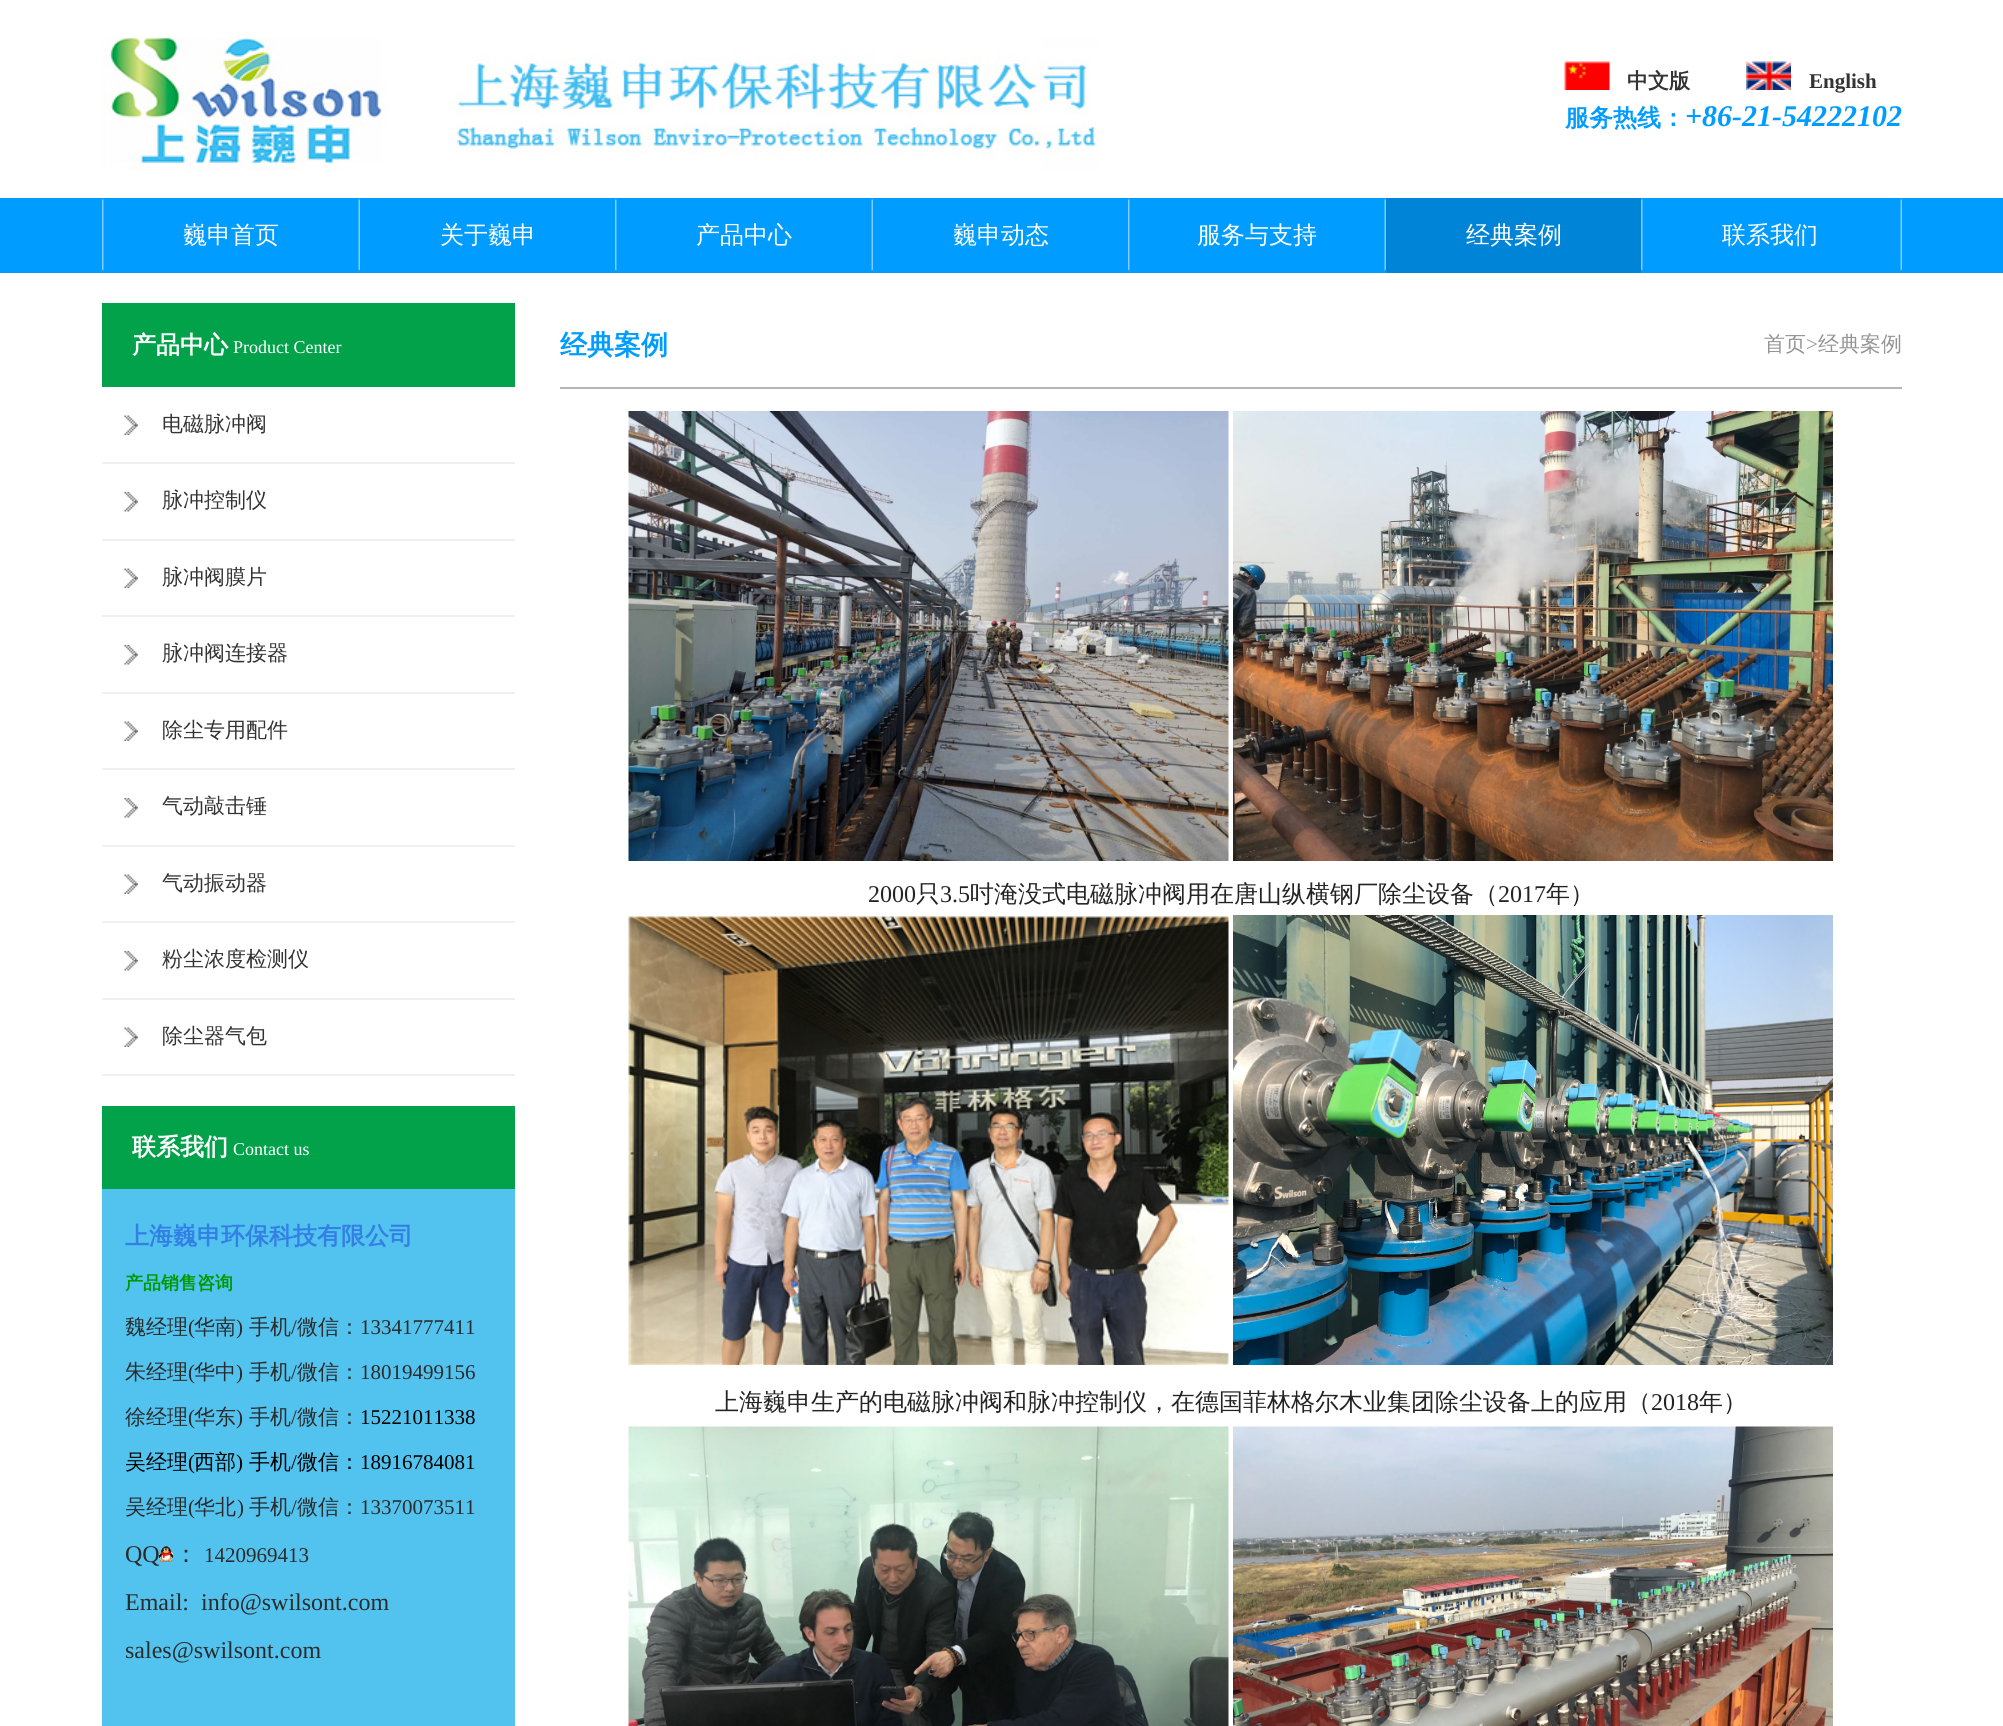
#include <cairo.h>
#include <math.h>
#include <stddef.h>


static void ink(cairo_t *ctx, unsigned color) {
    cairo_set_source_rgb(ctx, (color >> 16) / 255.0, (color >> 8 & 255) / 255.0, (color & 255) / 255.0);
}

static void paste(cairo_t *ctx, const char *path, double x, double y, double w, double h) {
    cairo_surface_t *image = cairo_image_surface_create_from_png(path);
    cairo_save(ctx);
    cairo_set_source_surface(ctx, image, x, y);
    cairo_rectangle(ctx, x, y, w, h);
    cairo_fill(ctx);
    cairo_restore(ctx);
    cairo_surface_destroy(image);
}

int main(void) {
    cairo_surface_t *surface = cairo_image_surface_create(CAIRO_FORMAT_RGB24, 2003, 1726);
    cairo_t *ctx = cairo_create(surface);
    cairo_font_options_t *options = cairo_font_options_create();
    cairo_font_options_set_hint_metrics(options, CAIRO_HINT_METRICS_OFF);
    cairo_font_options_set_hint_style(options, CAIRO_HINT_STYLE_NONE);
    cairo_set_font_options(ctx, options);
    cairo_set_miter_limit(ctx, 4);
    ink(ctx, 0xFFFFFF);
    cairo_paint(ctx);
    paste(ctx, "media/1.png", 102, 37, 996, 134);
    paste(ctx, "media/2.png", 1564, 61, 46, 29);
    cairo_select_font_face(ctx, "WenQuanYi Zen Hei", CAIRO_FONT_SLANT_NORMAL, CAIRO_FONT_WEIGHT_BOLD);
    cairo_set_font_size(ctx, 21);
    ink(ctx, 0x333333);
    cairo_move_to(ctx, 1627, 88);
    cairo_show_text(ctx, "中文版");
    paste(ctx, "media/3.png", 1746, 61, 45, 29);
    cairo_select_font_face(ctx, "Liberation Serif", CAIRO_FONT_SLANT_NORMAL, CAIRO_FONT_WEIGHT_BOLD);
    cairo_move_to(ctx, 1809, 88);
    cairo_show_text(ctx, "English");
    cairo_select_font_face(ctx, "WenQuanYi Zen Hei", CAIRO_FONT_SLANT_NORMAL, CAIRO_FONT_WEIGHT_BOLD);
    cairo_set_font_size(ctx, 24);
    ink(ctx, 0x009CFF);
    cairo_move_to(ctx, 1565, 126);
    cairo_show_text(ctx, "服务热线：");
    cairo_select_font_face(ctx, "Liberation Serif", CAIRO_FONT_SLANT_ITALIC, CAIRO_FONT_WEIGHT_BOLD);
    cairo_set_font_size(ctx, 30);
    cairo_move_to(ctx, 1685, 126);
    cairo_show_text(ctx, "+86-21-54222102");
    cairo_rectangle(ctx, 0, 198, 2003, 75);
    cairo_fill(ctx);
    paste(ctx, "media/4.png", 1900, 198, 2, 75);
    paste(ctx, "media/5.png", 102, 198, 2, 75);
    cairo_select_font_face(ctx, "WenQuanYi Zen Hei Medium", CAIRO_FONT_SLANT_NORMAL, CAIRO_FONT_WEIGHT_NORMAL);
    cairo_set_font_size(ctx, 24);
    ink(ctx, 0xFFFFFF);
    cairo_move_to(ctx, 183, 243);
    cairo_show_text(ctx, "巍申首页");
    paste(ctx, "media/4.png", 358, 198, 2, 75);
    cairo_move_to(ctx, 440, 243);
    cairo_show_text(ctx, "关于巍申");
    paste(ctx, "media/5.png", 615, 198, 2, 75);
    cairo_move_to(ctx, 696, 243);
    cairo_show_text(ctx, "产品中心");
    paste(ctx, "media/4.png", 871, 198, 2, 75);
    cairo_move_to(ctx, 953, 243);
    cairo_show_text(ctx, "巍申动态");
    paste(ctx, "media/5.png", 1128, 198, 2, 75);
    cairo_move_to(ctx, 1197, 243);
    cairo_show_text(ctx, "服务与支持");
    paste(ctx, "media/4.png", 1384, 198, 2, 75);
    ink(ctx, 0x0084D8);
    cairo_rectangle(ctx, 1386, 198, 255, 75);
    cairo_fill(ctx);
    ink(ctx, 0xFFFFFF);
    cairo_move_to(ctx, 1466, 243);
    cairo_show_text(ctx, "经典案例");
    paste(ctx, "media/5.png", 1641, 198, 2, 75);
    cairo_move_to(ctx, 1722, 243);
    cairo_show_text(ctx, "联系我们");
    ink(ctx, 0x02A24B);
    cairo_rectangle(ctx, 102, 303, 413, 84);
    cairo_fill(ctx);
    cairo_select_font_face(ctx, "WenQuanYi Zen Hei", CAIRO_FONT_SLANT_NORMAL, CAIRO_FONT_WEIGHT_BOLD);
    ink(ctx, 0xFFFFFF);
    cairo_move_to(ctx, 132, 353);
    cairo_show_text(ctx, "产品中心");
    cairo_select_font_face(ctx, "Liberation Serif", CAIRO_FONT_SLANT_NORMAL, CAIRO_FONT_WEIGHT_NORMAL);
    cairo_set_font_size(ctx, 18);
    cairo_move_to(ctx, 233, 353);
    cairo_show_text(ctx, "Product Center");
    ink(ctx, 0xF0F0F0);
    cairo_rectangle(ctx, 102, 462, 413, 2);
    cairo_fill(ctx);
    paste(ctx, "media/6.png", 124, 415, 14, 20);
    cairo_select_font_face(ctx, "WenQuanYi Zen Hei Medium", CAIRO_FONT_SLANT_NORMAL, CAIRO_FONT_WEIGHT_NORMAL);
    cairo_set_font_size(ctx, 21);
    ink(ctx, 0x333333);
    cairo_move_to(ctx, 162, 431);
    cairo_show_text(ctx, "电磁脉冲阀");
    ink(ctx, 0xF0F0F0);
    cairo_rectangle(ctx, 102, 539, 413, 2);
    cairo_fill(ctx);
    paste(ctx, "media/7.png", 124, 492, 14, 20);
    ink(ctx, 0x333333);
    cairo_move_to(ctx, 162, 507);
    cairo_show_text(ctx, "脉冲控制仪");
    ink(ctx, 0xF0F0F0);
    cairo_rectangle(ctx, 102, 615, 413, 2);
    cairo_fill(ctx);
    paste(ctx, "media/6.png", 124, 568, 14, 20);
    ink(ctx, 0x333333);
    cairo_move_to(ctx, 162, 584);
    cairo_show_text(ctx, "脉冲阀膜片");
    ink(ctx, 0xF0F0F0);
    cairo_rectangle(ctx, 102, 692, 413, 2);
    cairo_fill(ctx);
    paste(ctx, "media/7.png", 124, 645, 14, 20);
    ink(ctx, 0x333333);
    cairo_move_to(ctx, 162, 660);
    cairo_show_text(ctx, "脉冲阀连接器");
    ink(ctx, 0xF0F0F0);
    cairo_rectangle(ctx, 102, 768, 413, 2);
    cairo_fill(ctx);
    paste(ctx, "media/6.png", 124, 721, 14, 20);
    ink(ctx, 0x333333);
    cairo_move_to(ctx, 162, 737);
    cairo_show_text(ctx, "除尘专用配件");
    ink(ctx, 0xF0F0F0);
    cairo_rectangle(ctx, 102, 845, 413, 2);
    cairo_fill(ctx);
    paste(ctx, "media/7.png", 124, 798, 14, 20);
    ink(ctx, 0x333333);
    cairo_move_to(ctx, 162, 813);
    cairo_show_text(ctx, "气动敲击锤");
    ink(ctx, 0xF0F0F0);
    cairo_rectangle(ctx, 102, 921, 413, 2);
    cairo_fill(ctx);
    paste(ctx, "media/6.png", 124, 874, 14, 20);
    ink(ctx, 0x333333);
    cairo_move_to(ctx, 162, 890);
    cairo_show_text(ctx, "气动振动器");
    ink(ctx, 0xF0F0F0);
    cairo_rectangle(ctx, 102, 998, 413, 2);
    cairo_fill(ctx);
    paste(ctx, "media/7.png", 124, 951, 14, 20);
    ink(ctx, 0x333333);
    cairo_move_to(ctx, 162, 966);
    cairo_show_text(ctx, "粉尘浓度检测仪");
    ink(ctx, 0xF0F0F0);
    cairo_rectangle(ctx, 102, 1074, 413, 2);
    cairo_fill(ctx);
    paste(ctx, "media/6.png", 124, 1027, 14, 20);
    ink(ctx, 0x333333);
    cairo_move_to(ctx, 162, 1043);
    cairo_show_text(ctx, "除尘器气包");
    ink(ctx, 0x02A24B);
    cairo_rectangle(ctx, 102, 1106, 413, 83);
    cairo_fill(ctx);
    cairo_select_font_face(ctx, "WenQuanYi Zen Hei", CAIRO_FONT_SLANT_NORMAL, CAIRO_FONT_WEIGHT_BOLD);
    cairo_set_font_size(ctx, 24);
    ink(ctx, 0xFFFFFF);
    cairo_move_to(ctx, 132, 1155);
    cairo_show_text(ctx, "联系我们");
    cairo_select_font_face(ctx, "Liberation Serif", CAIRO_FONT_SLANT_NORMAL, CAIRO_FONT_WEIGHT_NORMAL);
    cairo_set_font_size(ctx, 18);
    cairo_move_to(ctx, 233, 1155);
    cairo_show_text(ctx, "Contact us");
    ink(ctx, 0x52C3EF);
    cairo_rectangle(ctx, 102, 1189, 413, 537);
    cairo_fill(ctx);
    cairo_select_font_face(ctx, "WenQuanYi Zen Hei", CAIRO_FONT_SLANT_NORMAL, CAIRO_FONT_WEIGHT_BOLD);
    cairo_set_font_size(ctx, 24);
    ink(ctx, 0x337FE5);
    cairo_move_to(ctx, 125, 1244);
    cairo_show_text(ctx, "上海巍申环保科技有限公司");
    cairo_set_font_size(ctx, 18);
    ink(ctx, 0x009900);
    cairo_move_to(ctx, 125, 1289);
    cairo_show_text(ctx, "产品销售咨询");
    cairo_select_font_face(ctx, "WenQuanYi Zen Hei Medium", CAIRO_FONT_SLANT_NORMAL, CAIRO_FONT_WEIGHT_NORMAL);
    cairo_set_font_size(ctx, 21);
    ink(ctx, 0x2B2B2B);
    cairo_move_to(ctx, 125, 1334);
    cairo_show_text(ctx, "魏经理");
    cairo_select_font_face(ctx, "Liberation Serif", CAIRO_FONT_SLANT_NORMAL, CAIRO_FONT_WEIGHT_NORMAL);
    cairo_move_to(ctx, 188, 1334);
    cairo_show_text(ctx, "(");
    cairo_select_font_face(ctx, "WenQuanYi Zen Hei Medium", CAIRO_FONT_SLANT_NORMAL, CAIRO_FONT_WEIGHT_NORMAL);
    cairo_move_to(ctx, 194, 1334);
    cairo_show_text(ctx, "华南");
    cairo_select_font_face(ctx, "Liberation Serif", CAIRO_FONT_SLANT_NORMAL, CAIRO_FONT_WEIGHT_NORMAL);
    cairo_move_to(ctx, 236, 1334);
    cairo_show_text(ctx, ")");
    cairo_select_font_face(ctx, "WenQuanYi Zen Hei Medium", CAIRO_FONT_SLANT_NORMAL, CAIRO_FONT_WEIGHT_NORMAL);
    cairo_move_to(ctx, 249, 1334);
    cairo_show_text(ctx, "手机");
    cairo_select_font_face(ctx, "Liberation Serif", CAIRO_FONT_SLANT_NORMAL, CAIRO_FONT_WEIGHT_NORMAL);
    cairo_move_to(ctx, 291, 1334);
    cairo_show_text(ctx, "/");
    cairo_select_font_face(ctx, "WenQuanYi Zen Hei Medium", CAIRO_FONT_SLANT_NORMAL, CAIRO_FONT_WEIGHT_NORMAL);
    cairo_move_to(ctx, 297, 1334);
    cairo_show_text(ctx, "微信：");
    cairo_select_font_face(ctx, "Liberation Serif", CAIRO_FONT_SLANT_NORMAL, CAIRO_FONT_WEIGHT_NORMAL);
    cairo_move_to(ctx, 360, 1334);
    cairo_show_text(ctx, "13341777411");
    cairo_select_font_face(ctx, "WenQuanYi Zen Hei Medium", CAIRO_FONT_SLANT_NORMAL, CAIRO_FONT_WEIGHT_NORMAL);
    cairo_move_to(ctx, 125, 1379);
    cairo_show_text(ctx, "朱经理");
    cairo_select_font_face(ctx, "Liberation Serif", CAIRO_FONT_SLANT_NORMAL, CAIRO_FONT_WEIGHT_NORMAL);
    cairo_move_to(ctx, 188, 1379);
    cairo_show_text(ctx, "(");
    cairo_select_font_face(ctx, "WenQuanYi Zen Hei Medium", CAIRO_FONT_SLANT_NORMAL, CAIRO_FONT_WEIGHT_NORMAL);
    cairo_move_to(ctx, 194, 1379);
    cairo_show_text(ctx, "华中");
    cairo_select_font_face(ctx, "Liberation Serif", CAIRO_FONT_SLANT_NORMAL, CAIRO_FONT_WEIGHT_NORMAL);
    cairo_move_to(ctx, 236, 1379);
    cairo_show_text(ctx, ")");
    cairo_select_font_face(ctx, "WenQuanYi Zen Hei Medium", CAIRO_FONT_SLANT_NORMAL, CAIRO_FONT_WEIGHT_NORMAL);
    cairo_move_to(ctx, 249, 1379);
    cairo_show_text(ctx, "手机");
    cairo_select_font_face(ctx, "Liberation Serif", CAIRO_FONT_SLANT_NORMAL, CAIRO_FONT_WEIGHT_NORMAL);
    cairo_move_to(ctx, 291, 1379);
    cairo_show_text(ctx, "/");
    cairo_select_font_face(ctx, "WenQuanYi Zen Hei Medium", CAIRO_FONT_SLANT_NORMAL, CAIRO_FONT_WEIGHT_NORMAL);
    cairo_move_to(ctx, 297, 1379);
    cairo_show_text(ctx, "微信：");
    cairo_select_font_face(ctx, "Liberation Serif", CAIRO_FONT_SLANT_NORMAL, CAIRO_FONT_WEIGHT_NORMAL);
    cairo_move_to(ctx, 360, 1379);
    cairo_show_text(ctx, "18019499156");
    cairo_select_font_face(ctx, "WenQuanYi Zen Hei Medium", CAIRO_FONT_SLANT_NORMAL, CAIRO_FONT_WEIGHT_NORMAL);
    cairo_move_to(ctx, 125, 1424);
    cairo_show_text(ctx, "徐经理");
    cairo_select_font_face(ctx, "Liberation Serif", CAIRO_FONT_SLANT_NORMAL, CAIRO_FONT_WEIGHT_NORMAL);
    cairo_move_to(ctx, 188, 1424);
    cairo_show_text(ctx, "(");
    cairo_select_font_face(ctx, "WenQuanYi Zen Hei Medium", CAIRO_FONT_SLANT_NORMAL, CAIRO_FONT_WEIGHT_NORMAL);
    cairo_move_to(ctx, 194, 1424);
    cairo_show_text(ctx, "华东");
    cairo_select_font_face(ctx, "Liberation Serif", CAIRO_FONT_SLANT_NORMAL, CAIRO_FONT_WEIGHT_NORMAL);
    cairo_move_to(ctx, 236, 1424);
    cairo_show_text(ctx, ")");
    cairo_select_font_face(ctx, "WenQuanYi Zen Hei Medium", CAIRO_FONT_SLANT_NORMAL, CAIRO_FONT_WEIGHT_NORMAL);
    cairo_move_to(ctx, 249, 1424);
    cairo_show_text(ctx, "手机");
    cairo_select_font_face(ctx, "Liberation Serif", CAIRO_FONT_SLANT_NORMAL, CAIRO_FONT_WEIGHT_NORMAL);
    cairo_move_to(ctx, 291, 1424);
    cairo_show_text(ctx, "/");
    cairo_select_font_face(ctx, "WenQuanYi Zen Hei Medium", CAIRO_FONT_SLANT_NORMAL, CAIRO_FONT_WEIGHT_NORMAL);
    cairo_move_to(ctx, 297, 1424);
    cairo_show_text(ctx, "微信：");
    cairo_select_font_face(ctx, "Liberation Serif", CAIRO_FONT_SLANT_NORMAL, CAIRO_FONT_WEIGHT_NORMAL);
    ink(ctx, 0x000000);
    cairo_move_to(ctx, 360, 1424);
    cairo_show_text(ctx, "15221011338");
    cairo_select_font_face(ctx, "WenQuanYi Zen Hei Medium", CAIRO_FONT_SLANT_NORMAL, CAIRO_FONT_WEIGHT_NORMAL);
    cairo_move_to(ctx, 125, 1469);
    cairo_show_text(ctx, "吴经理");
    cairo_select_font_face(ctx, "Liberation Serif", CAIRO_FONT_SLANT_NORMAL, CAIRO_FONT_WEIGHT_NORMAL);
    cairo_move_to(ctx, 188, 1469);
    cairo_show_text(ctx, "(");
    cairo_select_font_face(ctx, "WenQuanYi Zen Hei Medium", CAIRO_FONT_SLANT_NORMAL, CAIRO_FONT_WEIGHT_NORMAL);
    cairo_move_to(ctx, 194, 1469);
    cairo_show_text(ctx, "西部");
    cairo_select_font_face(ctx, "Liberation Serif", CAIRO_FONT_SLANT_NORMAL, CAIRO_FONT_WEIGHT_NORMAL);
    cairo_move_to(ctx, 236, 1469);
    cairo_show_text(ctx, ")");
    cairo_select_font_face(ctx, "WenQuanYi Zen Hei Medium", CAIRO_FONT_SLANT_NORMAL, CAIRO_FONT_WEIGHT_NORMAL);
    cairo_move_to(ctx, 249, 1469);
    cairo_show_text(ctx, "手机");
    cairo_select_font_face(ctx, "Liberation Serif", CAIRO_FONT_SLANT_NORMAL, CAIRO_FONT_WEIGHT_NORMAL);
    cairo_move_to(ctx, 291, 1469);
    cairo_show_text(ctx, "/");
    cairo_select_font_face(ctx, "WenQuanYi Zen Hei Medium", CAIRO_FONT_SLANT_NORMAL, CAIRO_FONT_WEIGHT_NORMAL);
    cairo_move_to(ctx, 297, 1469);
    cairo_show_text(ctx, "微信：");
    cairo_select_font_face(ctx, "Liberation Serif", CAIRO_FONT_SLANT_NORMAL, CAIRO_FONT_WEIGHT_NORMAL);
    cairo_move_to(ctx, 360, 1469);
    cairo_show_text(ctx, "18916784081");
    cairo_select_font_face(ctx, "WenQuanYi Zen Hei Medium", CAIRO_FONT_SLANT_NORMAL, CAIRO_FONT_WEIGHT_NORMAL);
    ink(ctx, 0x2B2B2B);
    cairo_move_to(ctx, 125, 1514);
    cairo_show_text(ctx, "吴经理");
    cairo_select_font_face(ctx, "Liberation Serif", CAIRO_FONT_SLANT_NORMAL, CAIRO_FONT_WEIGHT_NORMAL);
    cairo_move_to(ctx, 188, 1514);
    cairo_show_text(ctx, "(");
    cairo_select_font_face(ctx, "WenQuanYi Zen Hei Medium", CAIRO_FONT_SLANT_NORMAL, CAIRO_FONT_WEIGHT_NORMAL);
    cairo_move_to(ctx, 194, 1514);
    cairo_show_text(ctx, "华北");
    cairo_select_font_face(ctx, "Liberation Serif", CAIRO_FONT_SLANT_NORMAL, CAIRO_FONT_WEIGHT_NORMAL);
    cairo_move_to(ctx, 237, 1514);
    cairo_show_text(ctx, ")");
    cairo_select_font_face(ctx, "WenQuanYi Zen Hei Medium", CAIRO_FONT_SLANT_NORMAL, CAIRO_FONT_WEIGHT_NORMAL);
    cairo_move_to(ctx, 249, 1514);
    cairo_show_text(ctx, "手机");
    cairo_select_font_face(ctx, "Liberation Serif", CAIRO_FONT_SLANT_NORMAL, CAIRO_FONT_WEIGHT_NORMAL);
    cairo_move_to(ctx, 291, 1514);
    cairo_show_text(ctx, "/");
    cairo_select_font_face(ctx, "WenQuanYi Zen Hei Medium", CAIRO_FONT_SLANT_NORMAL, CAIRO_FONT_WEIGHT_NORMAL);
    cairo_move_to(ctx, 297, 1514);
    cairo_show_text(ctx, "微信：");
    cairo_select_font_face(ctx, "Liberation Serif", CAIRO_FONT_SLANT_NORMAL, CAIRO_FONT_WEIGHT_NORMAL);
    cairo_move_to(ctx, 360, 1514);
    cairo_show_text(ctx, "13370073511");
    cairo_set_font_size(ctx, 24);
    cairo_move_to(ctx, 125, 1562);
    cairo_show_text(ctx, "QQ");
    paste(ctx, "media/8.png", 159, 1546, 15, 16);
    cairo_select_font_face(ctx, "WenQuanYi Zen Hei Medium", CAIRO_FONT_SLANT_NORMAL, CAIRO_FONT_WEIGHT_NORMAL);
    cairo_move_to(ctx, 174, 1562);
    cairo_show_text(ctx, "：");
    cairo_select_font_face(ctx, "Liberation Serif", CAIRO_FONT_SLANT_NORMAL, CAIRO_FONT_WEIGHT_NORMAL);
    cairo_set_font_size(ctx, 21);
    cairo_move_to(ctx, 204, 1562);
    cairo_show_text(ctx, "1420969413");
    cairo_set_font_size(ctx, 24);
    cairo_move_to(ctx, 125, 1610);
    cairo_show_text(ctx, "Email:  info@swilsont.com");
    cairo_move_to(ctx, 125, 1658);
    cairo_show_text(ctx, "sales@swilsont.com");
    ink(ctx, 0xB6B6B6);
    cairo_rectangle(ctx, 560, 387, 1342, 2);
    cairo_fill(ctx);
    cairo_select_font_face(ctx, "WenQuanYi Zen Hei", CAIRO_FONT_SLANT_NORMAL, CAIRO_FONT_WEIGHT_BOLD);
    cairo_set_font_size(ctx, 27);
    ink(ctx, 0x009CFF);
    cairo_move_to(ctx, 560, 354);
    cairo_show_text(ctx, "经典案例");
    cairo_select_font_face(ctx, "WenQuanYi Zen Hei Medium", CAIRO_FONT_SLANT_NORMAL, CAIRO_FONT_WEIGHT_NORMAL);
    cairo_set_font_size(ctx, 21);
    ink(ctx, 0x949494);
    cairo_move_to(ctx, 1764, 351);
    cairo_show_text(ctx, "首页");
    cairo_select_font_face(ctx, "Liberation Serif", CAIRO_FONT_SLANT_NORMAL, CAIRO_FONT_WEIGHT_NORMAL);
    cairo_move_to(ctx, 1806, 351);
    cairo_show_text(ctx, ">");
    cairo_select_font_face(ctx, "WenQuanYi Zen Hei Medium", CAIRO_FONT_SLANT_NORMAL, CAIRO_FONT_WEIGHT_NORMAL);
    cairo_move_to(ctx, 1818, 351);
    cairo_show_text(ctx, "经典案例");
    paste(ctx, "media/9.png", 628, 411, 601, 450);
    paste(ctx, "media/10.png", 1233, 411, 600, 450);
    cairo_select_font_face(ctx, "Liberation Serif", CAIRO_FONT_SLANT_NORMAL, CAIRO_FONT_WEIGHT_NORMAL);
    cairo_set_font_size(ctx, 24);
    ink(ctx, 0x242323);
    cairo_move_to(ctx, 868, 902);
    cairo_show_text(ctx, "2000");
    cairo_select_font_face(ctx, "WenQuanYi Zen Hei Medium", CAIRO_FONT_SLANT_NORMAL, CAIRO_FONT_WEIGHT_NORMAL);
    cairo_move_to(ctx, 916, 902);
    cairo_show_text(ctx, "只");
    cairo_select_font_face(ctx, "Liberation Serif", CAIRO_FONT_SLANT_NORMAL, CAIRO_FONT_WEIGHT_NORMAL);
    cairo_move_to(ctx, 940, 902);
    cairo_show_text(ctx, "3.5");
    cairo_select_font_face(ctx, "WenQuanYi Zen Hei Medium", CAIRO_FONT_SLANT_NORMAL, CAIRO_FONT_WEIGHT_NORMAL);
    cairo_move_to(ctx, 970, 902);
    cairo_show_text(ctx, "吋淹没式电磁脉冲阀用在唐山纵横钢厂除尘设备（");
    cairo_select_font_face(ctx, "Liberation Serif", CAIRO_FONT_SLANT_NORMAL, CAIRO_FONT_WEIGHT_NORMAL);
    cairo_move_to(ctx, 1498, 902);
    cairo_show_text(ctx, "2017");
    cairo_select_font_face(ctx, "WenQuanYi Zen Hei Medium", CAIRO_FONT_SLANT_NORMAL, CAIRO_FONT_WEIGHT_NORMAL);
    cairo_move_to(ctx, 1546, 902);
    cairo_show_text(ctx, "年）");
    paste(ctx, "media/11.png", 628, 916, 601, 449);
    paste(ctx, "media/12.png", 1233, 915, 600, 450);
    cairo_move_to(ctx, 715, 1410);
    cairo_show_text(ctx, "上海巍申生产的电磁脉冲阀和脉冲控制仪，在德国菲林格尔木业集团除尘设备上的应用（");
    cairo_select_font_face(ctx, "Liberation Serif", CAIRO_FONT_SLANT_NORMAL, CAIRO_FONT_WEIGHT_NORMAL);
    cairo_move_to(ctx, 1651, 1410);
    cairo_show_text(ctx, "2018");
    cairo_select_font_face(ctx, "WenQuanYi Zen Hei Medium", CAIRO_FONT_SLANT_NORMAL, CAIRO_FONT_WEIGHT_NORMAL);
    cairo_move_to(ctx, 1699, 1410);
    cairo_show_text(ctx, "年）");
    paste(ctx, "media/13.png", 628, 1426, 601, 300);
    paste(ctx, "media/14.png", 1233, 1426, 600, 300);
    cairo_surface_write_to_png(surface, "image.png");
    cairo_font_options_destroy(options);
    cairo_destroy(ctx);
    cairo_surface_destroy(surface);
    return 0;
}
